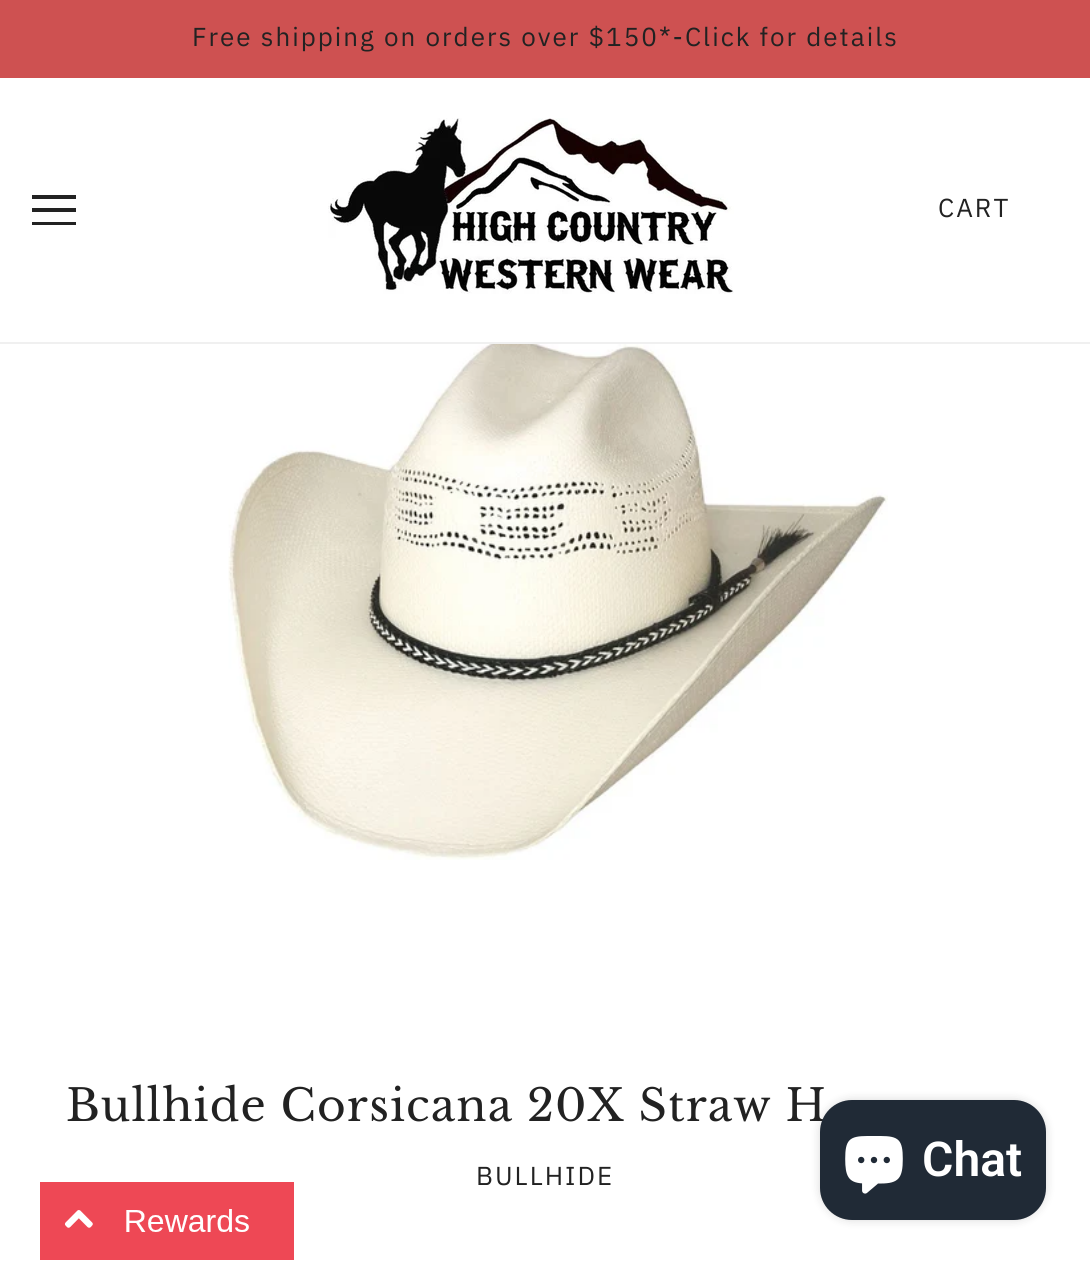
#include <cairo.h>
#include <math.h>
#include <stddef.h>


static void ink(cairo_t *ctx, unsigned color) {
    cairo_set_source_rgb(ctx, (color >> 16) / 255.0, (color >> 8 & 255) / 255.0, (color & 255) / 255.0);
}

static void write_spaced(cairo_t *ctx, double x, double y, const char *s, double letter, double word) {
    cairo_move_to(ctx, x, y);
    while (*s) {
        char ch[5] = {0};
        int n = 0;
        do ch[n++] = *s++; while ((*s & 0xC0) == 0x80);
        cairo_show_text(ctx, ch);
        cairo_rel_move_to(ctx, letter + word * (*ch == ' '), 0);
    }
}

static void round_path(cairo_t *ctx, double x, double y, double w, double h, double r) {
    cairo_new_sub_path(ctx);
    cairo_arc(ctx, x + w - r, y + h - r, r, 0, M_PI / 2);
    cairo_arc(ctx, x + r, y + h - r, r, M_PI / 2, M_PI);
    cairo_arc(ctx, x + r, y + r, r, M_PI, 1.5 * M_PI);
    cairo_arc(ctx, x + w - r, y + r, r, 1.5 * M_PI, 2 * M_PI);
    cairo_close_path(ctx);
}

static void blur_box(cairo_t *ctx, double x, double y, double w, double h, double r, double blur, double alpha) {
    cairo_push_group_with_content(ctx, CAIRO_CONTENT_ALPHA);
    cairo_set_operator(ctx, CAIRO_OPERATOR_SOURCE);
    for (int i = 15; i >= -15 && fmin(w, h) + blur * i / 3 > 0; i -= 2) {
        double e = blur * i / 6;
        cairo_set_source_rgba(ctx, 0, 0, 0, alpha * erfc((i - 1) / 8.5) / 2);
        round_path(ctx, x - e, y - e, w + 2 * e, h + 2 * e, fmax(0, fmin(r + e + blur * .6, fmin(w, h) / 2 + e)));
        cairo_fill(ctx);
    }
    cairo_pattern_t *soft = cairo_pop_group(ctx);
    cairo_mask(ctx, soft);
    cairo_pattern_destroy(soft);
}

static void paste(cairo_t *ctx, const char *path, double x, double y, double w, double h) {
    cairo_surface_t *image = cairo_image_surface_create_from_png(path);
    cairo_save(ctx);
    cairo_set_source_surface(ctx, image, x, y);
    cairo_rectangle(ctx, x, y, w, h);
    cairo_fill(ctx);
    cairo_restore(ctx);
    cairo_surface_destroy(image);
}

int main(void) {
    cairo_surface_t *surface = cairo_image_surface_create(CAIRO_FORMAT_RGB24, 1090, 1261);
    cairo_t *ctx = cairo_create(surface);
    cairo_font_options_t *options = cairo_font_options_create();
    cairo_font_options_set_hint_metrics(options, CAIRO_HINT_METRICS_OFF);
    cairo_font_options_set_hint_style(options, CAIRO_HINT_STYLE_NONE);
    cairo_set_font_options(ctx, options);
    cairo_set_miter_limit(ctx, 4);
    ink(ctx, 0xFFFFFF);
    cairo_paint(ctx);
    ink(ctx, 0xCE5151);
    cairo_rectangle(ctx, 0, 0, 1090, 78);
    cairo_fill(ctx);
    cairo_select_font_face(ctx, "IBM Plex Sans", CAIRO_FONT_SLANT_NORMAL, CAIRO_FONT_WEIGHT_NORMAL);
    cairo_set_font_size(ctx, 26);
    ink(ctx, 0x222222);
    write_spaced(ctx, 192, 46, "Free shipping on orders over $150*-Click for details", 2, 0);
    ink(ctx, 0xF0F0F0);
    cairo_rectangle(ctx, 0, 342, 1090, 2);
    cairo_fill(ctx);
    ink(ctx, 0x222222);
    cairo_new_path(ctx);
    cairo_move_to(ctx, 32, 199);
    cairo_line_to(ctx, 32, 195);
    cairo_line_to(ctx, 76, 195);
    cairo_line_to(ctx, 76, 199);
    cairo_close_path(ctx);
    cairo_move_to(ctx, 32, 212);
    cairo_line_to(ctx, 32, 208);
    cairo_line_to(ctx, 76, 208);
    cairo_line_to(ctx, 76, 212);
    cairo_close_path(ctx);
    cairo_move_to(ctx, 32, 225);
    cairo_line_to(ctx, 32, 222);
    cairo_line_to(ctx, 76, 222);
    cairo_line_to(ctx, 76, 225);
    cairo_close_path(ctx);
    cairo_fill(ctx);
    paste(ctx, "media/1.png", 328, 118, 406, 176);
    write_spaced(ctx, 938, 217, "CART", 2, 0);
    paste(ctx, "media/2.png", 228, 344, 660, 516);
    cairo_select_font_face(ctx, "Libre Baskerville", CAIRO_FONT_SLANT_NORMAL, CAIRO_FONT_WEIGHT_NORMAL);
    cairo_set_font_size(ctx, 44);
    write_spaced(ctx, 66, 1121, "Bullhide Corsicana 20X Straw H", 1.1, 0);
    cairo_select_font_face(ctx, "IBM Plex Sans", CAIRO_FONT_SLANT_NORMAL, CAIRO_FONT_WEIGHT_NORMAL);
    cairo_set_font_size(ctx, 26);
    write_spaced(ctx, 476, 1185, "BULLHIDE", 2, 0);
    ink(ctx, 0x000000);
    blur_box(ctx, 820, 1100, 226, 120, 32, 5, 0.15);
    ink(ctx, 0x202A36);
    round_path(ctx, 820, 1100, 226, 120, 32);
    cairo_fill(ctx);
    paste(ctx, "media/3.png", 845, 1136, 58, 58);
    cairo_select_font_face(ctx, "Roboto SemiBold", CAIRO_FONT_SLANT_NORMAL, CAIRO_FONT_WEIGHT_NORMAL);
    cairo_set_font_size(ctx, 48);
    ink(ctx, 0xFFFFFF);
    cairo_move_to(ctx, 922, 1176);
    cairo_show_text(ctx, "Chat");
    paste(ctx, "media/4.png", 40, 1182, 254, 78);
    cairo_surface_write_to_png(surface, "image.png");
    cairo_font_options_destroy(options);
    cairo_destroy(ctx);
    cairo_surface_destroy(surface);
    return 0;
}
